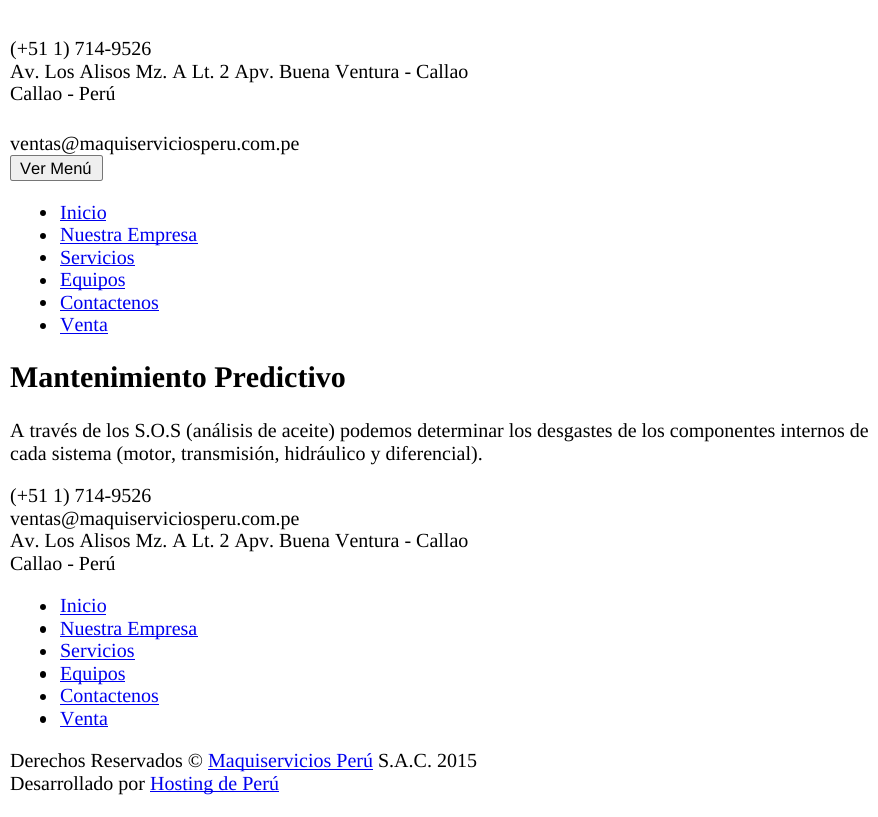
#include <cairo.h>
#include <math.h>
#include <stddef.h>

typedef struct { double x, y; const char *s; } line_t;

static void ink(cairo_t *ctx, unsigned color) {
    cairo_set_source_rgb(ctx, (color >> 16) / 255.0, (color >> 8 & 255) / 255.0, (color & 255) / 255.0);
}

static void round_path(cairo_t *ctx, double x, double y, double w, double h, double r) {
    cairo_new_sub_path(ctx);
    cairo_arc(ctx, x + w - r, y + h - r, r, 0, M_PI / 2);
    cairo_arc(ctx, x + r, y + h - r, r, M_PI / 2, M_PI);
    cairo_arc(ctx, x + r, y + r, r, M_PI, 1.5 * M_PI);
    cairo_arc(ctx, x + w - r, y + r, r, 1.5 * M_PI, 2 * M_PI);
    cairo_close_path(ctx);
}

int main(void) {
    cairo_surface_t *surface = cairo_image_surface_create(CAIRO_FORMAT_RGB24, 878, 817);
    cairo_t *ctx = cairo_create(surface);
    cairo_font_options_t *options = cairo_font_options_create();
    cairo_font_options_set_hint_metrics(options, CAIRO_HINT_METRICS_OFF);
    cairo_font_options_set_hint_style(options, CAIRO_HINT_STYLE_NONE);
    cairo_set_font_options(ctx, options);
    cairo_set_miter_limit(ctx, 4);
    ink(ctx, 0xFFFFFF);
    cairo_paint(ctx);
    cairo_select_font_face(ctx, "Liberation Serif", CAIRO_FONT_SLANT_NORMAL, CAIRO_FONT_WEIGHT_NORMAL);
    cairo_set_font_size(ctx, 20);
    ink(ctx, 0x000000);
    {
        static const line_t items[] = {
            {10, 55, "(+51 1) 714-9526"},
            {10, 78, "Av. Los Alisos Mz. A Lt. 2 Apv. Buena Ventura - Callao"},
            {10, 100, "Callao - Perú"},
            {10, 150, "ventas@maquiserviciosperu.com.pe"},
        };
        for (size_t i = 0; i < sizeof items / sizeof *items; i++) {
            cairo_move_to(ctx, items[i].x, items[i].y);
            cairo_show_text(ctx, items[i].s);
        }
    }
    ink(ctx, 0xEFEFEF);
    round_path(ctx, 10.5, 155.5, 92, 25, 2);
    cairo_fill_preserve(ctx);
    ink(ctx, 0x767676);
    cairo_set_line_width(ctx, 1);
    cairo_stroke(ctx);
    cairo_select_font_face(ctx, "Liberation Sans", CAIRO_FONT_SLANT_NORMAL, CAIRO_FONT_WEIGHT_NORMAL);
    cairo_set_font_size(ctx, 16.5);
    ink(ctx, 0x000000);
    cairo_move_to(ctx, 20, 174);
    cairo_show_text(ctx, "Ver Menú");
    cairo_new_path(ctx);
    cairo_arc(ctx, 43, 213, 3, 0, 2 * M_PI);
    cairo_fill(ctx);
    cairo_select_font_face(ctx, "Liberation Serif", CAIRO_FONT_SLANT_NORMAL, CAIRO_FONT_WEIGHT_NORMAL);
    cairo_set_font_size(ctx, 20);
    ink(ctx, 0x0000EE);
    cairo_move_to(ctx, 60, 219);
    cairo_show_text(ctx, "Inicio");
    cairo_rectangle(ctx, 60, 220, 46, 1);
    cairo_fill(ctx);
    ink(ctx, 0x000000);
    cairo_arc(ctx, 43, 236, 3, 0, 2 * M_PI);
    cairo_fill(ctx);
    ink(ctx, 0x0000EE);
    cairo_rectangle(ctx, 60, 243, 138, 1);
    cairo_fill(ctx);
    cairo_move_to(ctx, 60, 241);
    cairo_show_text(ctx, "Nuestra Empresa");
    ink(ctx, 0x000000);
    cairo_new_path(ctx);
    cairo_arc(ctx, 43, 258, 3, 0, 2 * M_PI);
    cairo_fill(ctx);
    ink(ctx, 0x0000EE);
    cairo_move_to(ctx, 60, 264);
    cairo_show_text(ctx, "Servicios");
    cairo_rectangle(ctx, 60, 265, 75, 1);
    cairo_fill(ctx);
    ink(ctx, 0x000000);
    cairo_arc(ctx, 43, 281, 3, 0, 2 * M_PI);
    cairo_fill(ctx);
    ink(ctx, 0x0000EE);
    cairo_rectangle(ctx, 60, 288, 65, 1);
    cairo_fill(ctx);
    cairo_move_to(ctx, 60, 286);
    cairo_show_text(ctx, "Equipos");
    ink(ctx, 0x000000);
    cairo_new_path(ctx);
    cairo_arc(ctx, 43, 303, 3, 0, 2 * M_PI);
    cairo_fill(ctx);
    ink(ctx, 0x0000EE);
    cairo_move_to(ctx, 60, 309);
    cairo_show_text(ctx, "Contactenos");
    cairo_rectangle(ctx, 60, 310, 99, 1);
    cairo_fill(ctx);
    ink(ctx, 0x000000);
    cairo_arc(ctx, 43, 326, 3, 0, 2 * M_PI);
    cairo_fill(ctx);
    ink(ctx, 0x0000EE);
    cairo_move_to(ctx, 60, 331);
    cairo_show_text(ctx, "Venta");
    cairo_rectangle(ctx, 60, 333, 48, 1);
    cairo_fill(ctx);
    cairo_select_font_face(ctx, "Liberation Serif", CAIRO_FONT_SLANT_NORMAL, CAIRO_FONT_WEIGHT_BOLD);
    cairo_set_font_size(ctx, 30);
    ink(ctx, 0x000000);
    cairo_move_to(ctx, 10, 387);
    cairo_show_text(ctx, "Mantenimiento Predictivo");
    cairo_select_font_face(ctx, "Liberation Serif", CAIRO_FONT_SLANT_NORMAL, CAIRO_FONT_WEIGHT_NORMAL);
    cairo_set_font_size(ctx, 20);
    {
        static const line_t items[] = {
            {10, 437, "A través de los S.O.S (análisis de aceite) podemos determinar los desgastes de los componentes internos de"},
            {10, 460, "cada sistema (motor, transmisión, hidráulico y diferencial)."},
            {10, 502, "(+51 1) 714-9526"},
            {10, 525, "ventas@maquiserviciosperu.com.pe"},
            {10, 547, "Av. Los Alisos Mz. A Lt. 2 Apv. Buena Ventura - Callao"},
            {10, 570, "Callao - Perú"},
        };
        for (size_t i = 0; i < sizeof items / sizeof *items; i++) {
            cairo_move_to(ctx, items[i].x, items[i].y);
            cairo_show_text(ctx, items[i].s);
        }
    }
    cairo_new_path(ctx);
    cairo_arc(ctx, 43, 607, 3, 0, 2 * M_PI);
    cairo_fill(ctx);
    ink(ctx, 0x0000EE);
    cairo_move_to(ctx, 60, 612);
    cairo_show_text(ctx, "Inicio");
    cairo_rectangle(ctx, 60, 614, 46, 1);
    cairo_fill(ctx);
    ink(ctx, 0x000000);
    round_path(ctx, 40, 626, 6, 7, 3);
    cairo_fill(ctx);
    ink(ctx, 0x0000EE);
    cairo_rectangle(ctx, 60, 636, 138, 1);
    cairo_fill(ctx);
    cairo_move_to(ctx, 60, 635);
    cairo_show_text(ctx, "Nuestra Empresa");
    ink(ctx, 0x000000);
    cairo_new_path(ctx);
    cairo_arc(ctx, 43, 652, 3, 0, 2 * M_PI);
    cairo_fill(ctx);
    ink(ctx, 0x0000EE);
    cairo_move_to(ctx, 60, 657);
    cairo_show_text(ctx, "Servicios");
    cairo_rectangle(ctx, 60, 659, 75, 1);
    cairo_fill(ctx);
    ink(ctx, 0x000000);
    round_path(ctx, 40, 671, 6, 7, 3);
    cairo_fill(ctx);
    ink(ctx, 0x0000EE);
    cairo_rectangle(ctx, 60, 681, 65, 1);
    cairo_fill(ctx);
    cairo_move_to(ctx, 60, 680);
    cairo_show_text(ctx, "Equipos");
    ink(ctx, 0x000000);
    cairo_new_path(ctx);
    cairo_arc(ctx, 43, 697, 3, 0, 2 * M_PI);
    cairo_fill(ctx);
    ink(ctx, 0x0000EE);
    cairo_move_to(ctx, 60, 702);
    cairo_show_text(ctx, "Contactenos");
    cairo_rectangle(ctx, 60, 704, 99, 1);
    cairo_fill(ctx);
    ink(ctx, 0x000000);
    round_path(ctx, 40, 716, 6, 7, 3);
    cairo_fill(ctx);
    ink(ctx, 0x0000EE);
    cairo_move_to(ctx, 60, 725);
    cairo_show_text(ctx, "Venta");
    cairo_rectangle(ctx, 60, 726, 48, 1);
    cairo_fill(ctx);
    ink(ctx, 0x000000);
    cairo_move_to(ctx, 10, 767);
    cairo_show_text(ctx, "Derechos Reservados ©");
    ink(ctx, 0x0000EE);
    cairo_rectangle(ctx, 208, 769, 165, 1);
    cairo_fill(ctx);
    cairo_move_to(ctx, 208, 767);
    cairo_show_text(ctx, "Maquiservicios Perú");
    ink(ctx, 0x000000);
    cairo_move_to(ctx, 378, 767);
    cairo_show_text(ctx, "S.A.C. 2015");
    cairo_move_to(ctx, 10, 790);
    cairo_show_text(ctx, "Desarrollado por");
    ink(ctx, 0x0000EE);
    cairo_rectangle(ctx, 150, 791, 129, 1);
    cairo_fill(ctx);
    cairo_move_to(ctx, 150, 790);
    cairo_show_text(ctx, "Hosting de Perú");
    cairo_surface_write_to_png(surface, "image.png");
    cairo_font_options_destroy(options);
    cairo_destroy(ctx);
    cairo_surface_destroy(surface);
    return 0;
}
